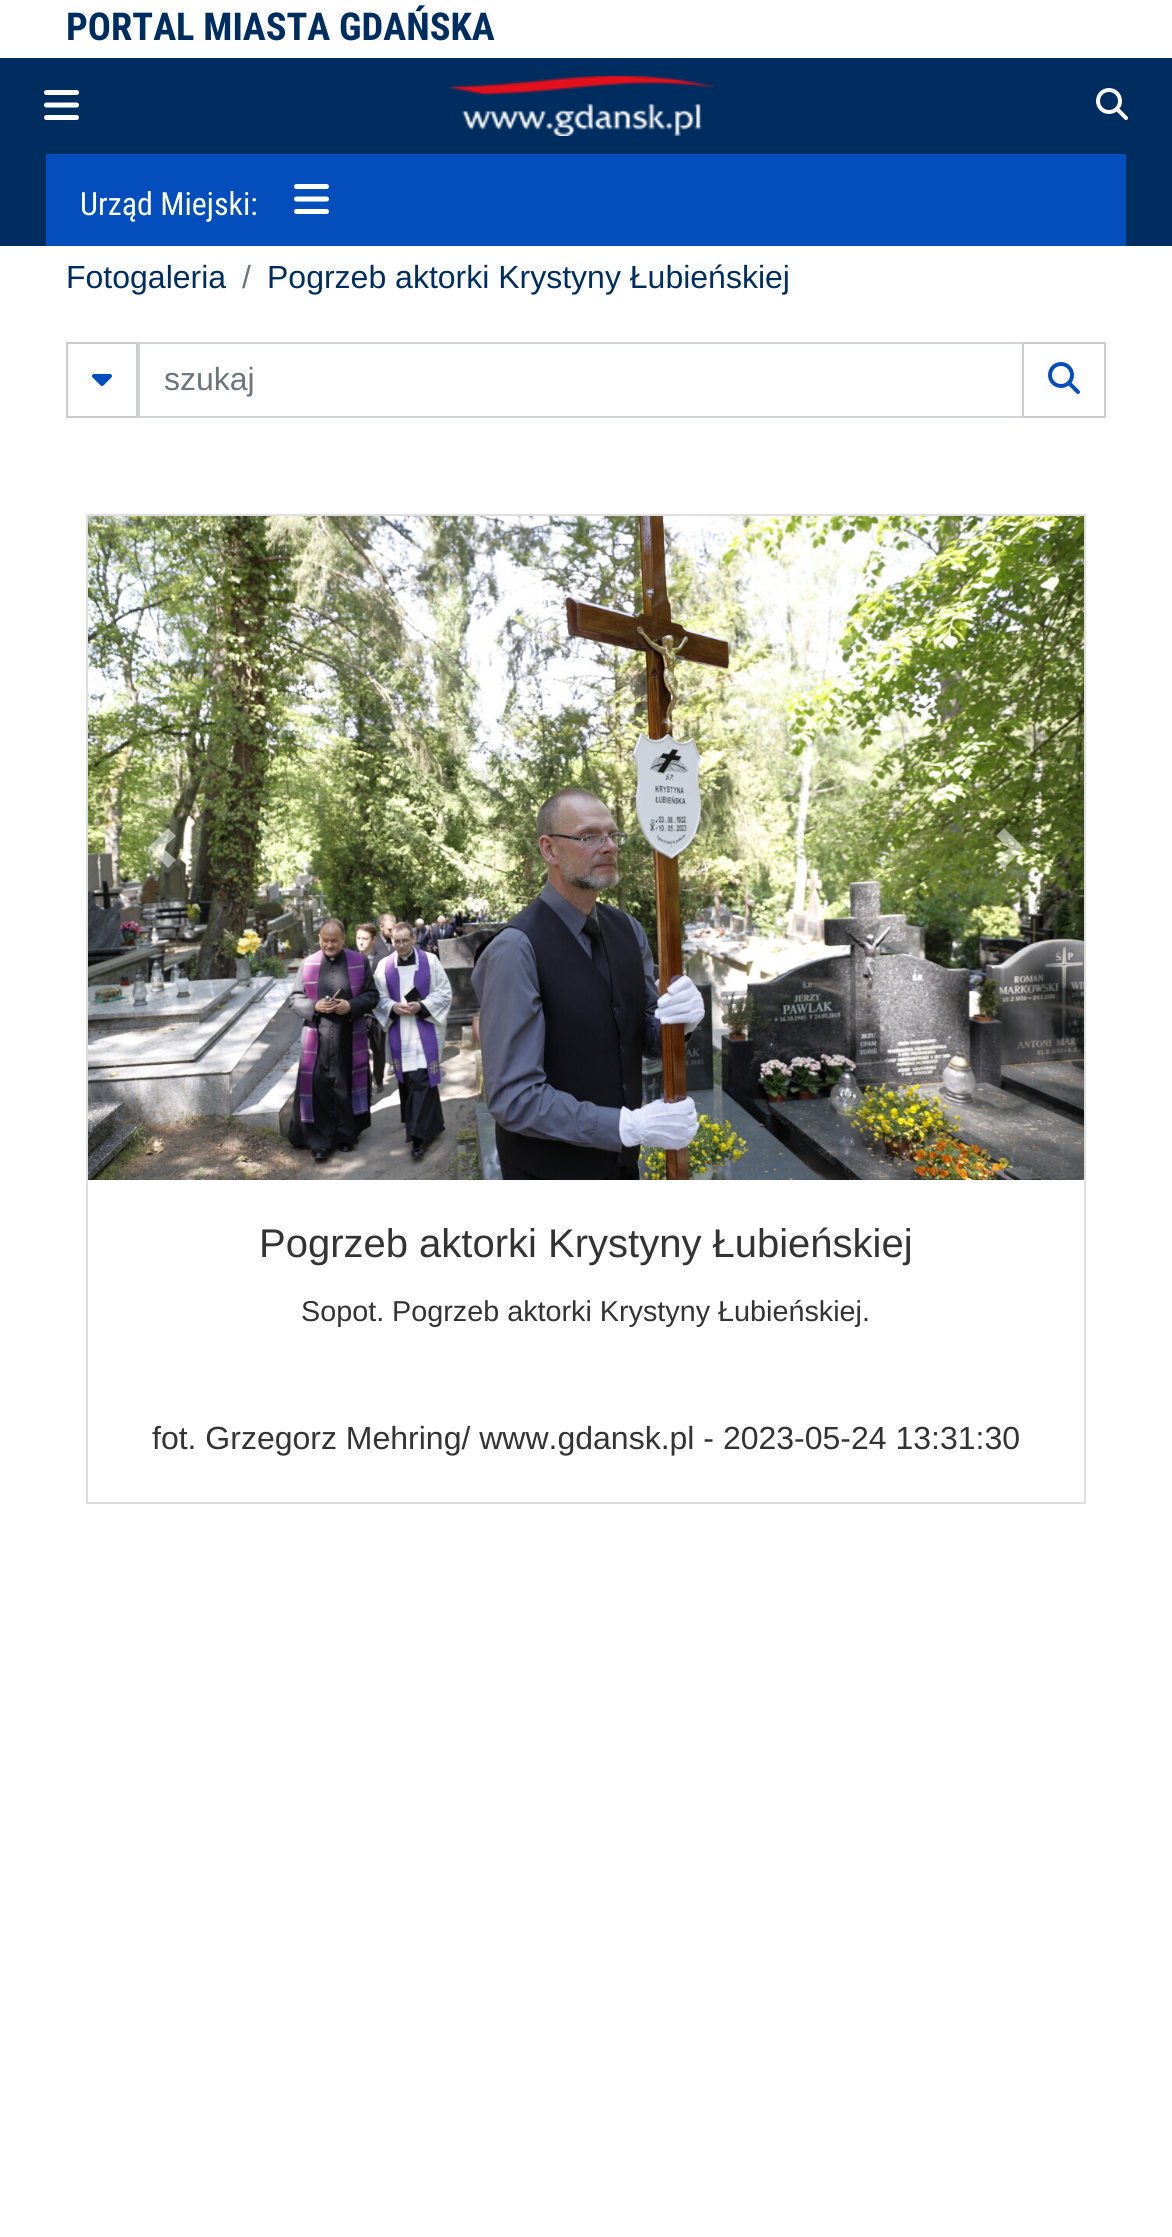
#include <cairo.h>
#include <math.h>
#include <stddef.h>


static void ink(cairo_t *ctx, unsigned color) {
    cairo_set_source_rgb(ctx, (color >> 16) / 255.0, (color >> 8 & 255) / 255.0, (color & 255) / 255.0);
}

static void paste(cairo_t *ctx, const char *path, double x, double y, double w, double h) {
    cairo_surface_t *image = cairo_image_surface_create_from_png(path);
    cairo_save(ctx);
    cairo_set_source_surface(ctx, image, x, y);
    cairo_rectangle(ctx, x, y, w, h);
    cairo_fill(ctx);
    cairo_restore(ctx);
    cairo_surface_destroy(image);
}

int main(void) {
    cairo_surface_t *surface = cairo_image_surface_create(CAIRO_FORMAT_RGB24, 1172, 2237);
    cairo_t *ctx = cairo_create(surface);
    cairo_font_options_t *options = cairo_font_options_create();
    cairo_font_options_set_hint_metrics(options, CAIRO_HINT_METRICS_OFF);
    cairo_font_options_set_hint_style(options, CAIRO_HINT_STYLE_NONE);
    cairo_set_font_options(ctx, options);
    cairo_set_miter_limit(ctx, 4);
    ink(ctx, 0xFFFFFF);
    cairo_paint(ctx);
    cairo_select_font_face(ctx, "Roboto Condensed", CAIRO_FONT_SLANT_NORMAL, CAIRO_FONT_WEIGHT_BOLD);
    cairo_set_font_size(ctx, 38.4);
    ink(ctx, 0x002D60);
    cairo_move_to(ctx, 66, 40);
    cairo_show_text(ctx, "PORTAL MIASTA GDAŃSKA");
    cairo_rectangle(ctx, 0, 58, 1172, 188);
    cairo_fill(ctx);
    paste(ctx, "media/1.png", 44, 90, 35, 30);
    paste(ctx, "media/2.png", 450, 76, 264, 60);
    paste(ctx, "media/3.png", 1096, 88, 32, 32);
    ink(ctx, 0x034EBC);
    cairo_rectangle(ctx, 46, 154, 1080, 92);
    cairo_fill(ctx);
    cairo_select_font_face(ctx, "Roboto Condensed", CAIRO_FONT_SLANT_NORMAL, CAIRO_FONT_WEIGHT_NORMAL);
    cairo_set_font_size(ctx, 32);
    ink(ctx, 0xFFFFFF);
    cairo_move_to(ctx, 80, 215);
    cairo_show_text(ctx, "Urząd Miejski:");
    paste(ctx, "media/4.png", 294, 184, 35, 30);
    cairo_select_font_face(ctx, "Liberation Sans", CAIRO_FONT_SLANT_NORMAL, CAIRO_FONT_WEIGHT_NORMAL);
    ink(ctx, 0x002D60);
    cairo_move_to(ctx, 66, 288);
    cairo_show_text(ctx, "Fotogaleria");
    ink(ctx, 0x6C757D);
    cairo_move_to(ctx, 242, 288);
    cairo_show_text(ctx, "/");
    ink(ctx, 0x002D60);
    cairo_move_to(ctx, 267, 288);
    cairo_show_text(ctx, "Pogrzeb aktorki Krystyny Łubieńskiej");
    cairo_rectangle(ctx, 67, 343, 70, 74);
    ink(ctx, 0xCCCCCC);
    cairo_stroke(ctx);
    paste(ctx, "media/5.png", 92, 374, 20, 12);
    cairo_rectangle(ctx, 139, 343, 884, 74);
    ink(ctx, 0xCED4DA);
    cairo_stroke(ctx);
    ink(ctx, 0x6C757D);
    cairo_move_to(ctx, 164, 390);
    cairo_show_text(ctx, "szukaj");
    cairo_rectangle(ctx, 1023, 343, 82, 74);
    ink(ctx, 0xCCCCCC);
    cairo_stroke(ctx);
    paste(ctx, "media/6.png", 1048, 362, 32, 32);
    cairo_rectangle(ctx, 87, 515, 998, 988);
    ink(ctx, 0xDFDFDF);
    cairo_stroke(ctx);
    paste(ctx, "media/7.png", 88, 516, 996, 664);
    cairo_set_source_rgba(ctx, 1, 1, 1, 0.5);
    cairo_new_path(ctx);
    cairo_move_to(ctx, 168, 828);
    cairo_line_to(ctx, 148, 848);
    cairo_line_to(ctx, 168, 868);
    cairo_line_to(ctx, 176, 860);
    cairo_line_to(ctx, 163, 848);
    cairo_line_to(ctx, 176, 836);
    cairo_close_path(ctx);
    cairo_fill(ctx);
    cairo_new_path(ctx);
    cairo_move_to(ctx, 1004, 828);
    cairo_line_to(ctx, 996, 836);
    cairo_line_to(ctx, 1009, 848);
    cairo_line_to(ctx, 996, 860);
    cairo_line_to(ctx, 1004, 868);
    cairo_line_to(ctx, 1024, 848);
    cairo_close_path(ctx);
    cairo_fill(ctx);
    cairo_set_font_size(ctx, 40);
    ink(ctx, 0x333333);
    cairo_move_to(ctx, 259, 1257);
    cairo_show_text(ctx, "Pogrzeb aktorki Krystyny Łubieńskiej");
    cairo_set_font_size(ctx, 28.75);
    cairo_move_to(ctx, 301, 1321);
    cairo_show_text(ctx, "Sopot. Pogrzeb aktorki Krystyny Łubieńskiej.");
    cairo_set_font_size(ctx, 32);
    cairo_move_to(ctx, 152, 1449);
    cairo_show_text(ctx, "fot. Grzegorz Mehring/ www.gdansk.pl - 2023-05-24 13:31:30");
    cairo_surface_write_to_png(surface, "image.png");
    cairo_font_options_destroy(options);
    cairo_destroy(ctx);
    cairo_surface_destroy(surface);
    return 0;
}
